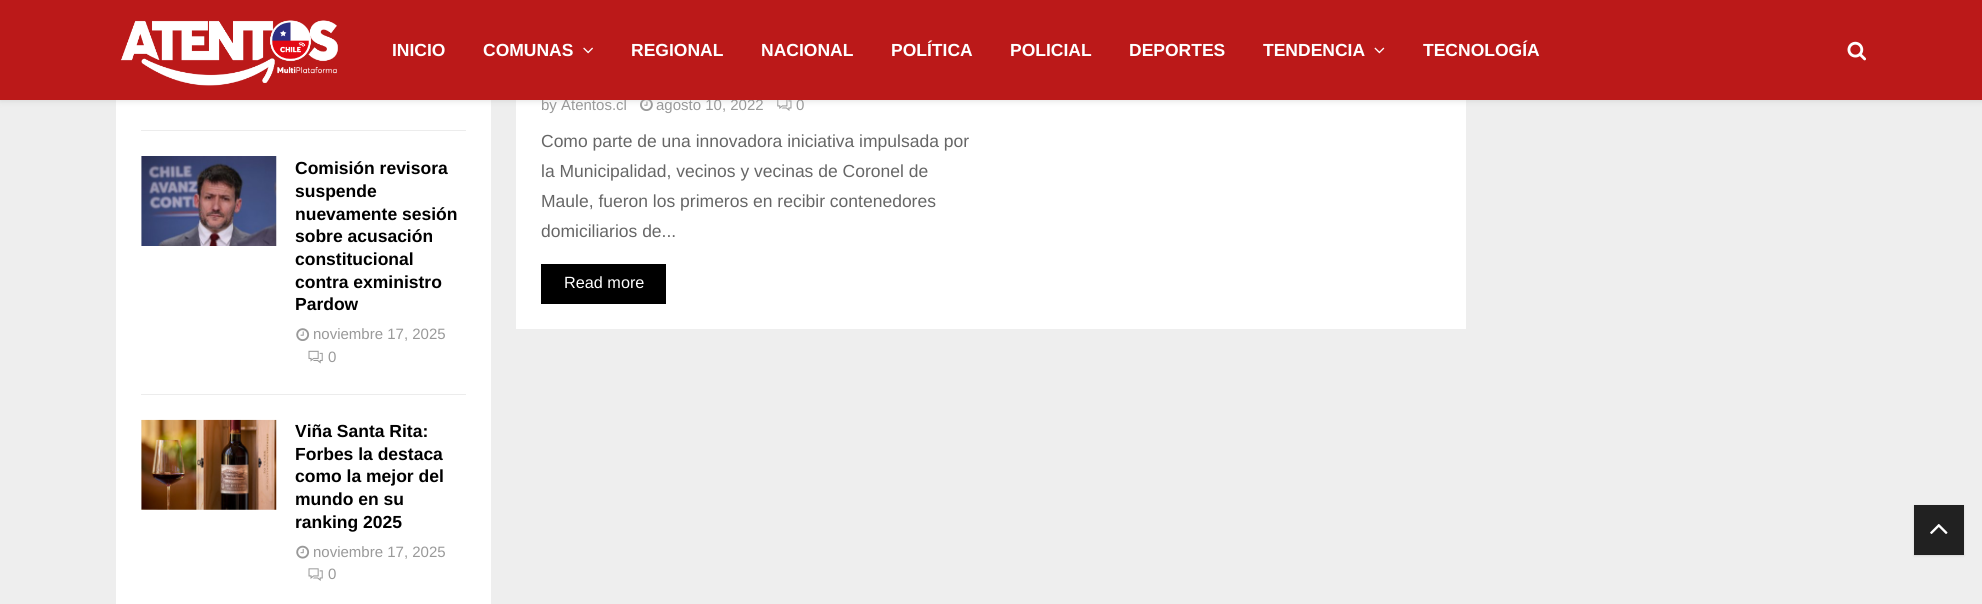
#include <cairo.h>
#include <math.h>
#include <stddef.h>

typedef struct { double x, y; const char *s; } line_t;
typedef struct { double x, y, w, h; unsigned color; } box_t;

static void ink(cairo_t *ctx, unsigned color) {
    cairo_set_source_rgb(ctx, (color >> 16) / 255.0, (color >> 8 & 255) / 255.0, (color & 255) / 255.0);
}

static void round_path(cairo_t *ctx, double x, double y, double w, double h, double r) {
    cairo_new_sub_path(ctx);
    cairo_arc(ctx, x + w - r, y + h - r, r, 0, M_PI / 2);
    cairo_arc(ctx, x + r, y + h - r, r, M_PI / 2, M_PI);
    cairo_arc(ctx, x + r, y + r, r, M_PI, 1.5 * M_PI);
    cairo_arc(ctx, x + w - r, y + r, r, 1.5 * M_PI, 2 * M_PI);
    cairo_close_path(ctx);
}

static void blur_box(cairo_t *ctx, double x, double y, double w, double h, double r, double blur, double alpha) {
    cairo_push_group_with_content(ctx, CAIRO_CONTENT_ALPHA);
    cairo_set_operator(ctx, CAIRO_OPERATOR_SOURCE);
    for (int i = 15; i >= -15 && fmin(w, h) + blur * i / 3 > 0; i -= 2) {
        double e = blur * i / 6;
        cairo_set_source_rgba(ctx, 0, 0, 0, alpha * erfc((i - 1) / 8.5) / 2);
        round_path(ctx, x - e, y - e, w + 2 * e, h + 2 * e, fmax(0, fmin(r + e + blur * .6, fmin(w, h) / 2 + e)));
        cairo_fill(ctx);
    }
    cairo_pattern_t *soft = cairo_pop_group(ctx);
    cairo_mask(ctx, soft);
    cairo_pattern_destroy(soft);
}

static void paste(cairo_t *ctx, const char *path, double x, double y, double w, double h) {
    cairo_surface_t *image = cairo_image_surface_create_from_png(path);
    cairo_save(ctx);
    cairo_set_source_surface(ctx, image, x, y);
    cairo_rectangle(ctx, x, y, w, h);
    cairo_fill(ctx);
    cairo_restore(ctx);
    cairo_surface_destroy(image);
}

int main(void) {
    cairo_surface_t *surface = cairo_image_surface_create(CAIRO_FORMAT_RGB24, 1982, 604);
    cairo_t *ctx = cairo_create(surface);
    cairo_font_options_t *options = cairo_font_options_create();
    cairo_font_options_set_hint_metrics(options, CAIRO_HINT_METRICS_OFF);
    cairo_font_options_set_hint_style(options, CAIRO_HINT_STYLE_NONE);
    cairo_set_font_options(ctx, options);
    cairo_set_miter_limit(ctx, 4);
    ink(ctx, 0xEEEEEE);
    cairo_paint(ctx);
    ink(ctx, 0xFFFFFF);
    cairo_rectangle(ctx, 116, 100, 375, 504);
    cairo_fill(ctx);
    cairo_rectangle(ctx, 516, 100, 950, 229);
    cairo_fill(ctx);
    paste(ctx, "media/11.png", 640, 100, 13, 11);
    paste(ctx, "media/12.png", 777, 100, 15, 11);
    ink(ctx, 0xBEBEBE);
    blur_box(ctx, 0, 1, 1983, 100, 0, 3, 0.46);
    cairo_select_font_face(ctx, "Liberation Sans", CAIRO_FONT_SLANT_NORMAL, CAIRO_FONT_WEIGHT_NORMAL);
    cairo_set_font_size(ctx, 15);
    ink(ctx, 0x999999);
    {
        static const line_t items[] = {
            {541, 110, "by Atentos.cl"},
            {656, 110, "agosto 10, 2022"},
            {796, 110, "0"},
        };
        for (size_t i = 0; i < sizeof items / sizeof *items; i++) {
            cairo_move_to(ctx, items[i].x, items[i].y);
            cairo_show_text(ctx, items[i].s);
        }
    }
    ink(ctx, 0xBB1919);
    cairo_rectangle(ctx, 0, 0, 1982, 100);
    cairo_fill(ctx);
    paste(ctx, "media/1.png", 121, 20, 217, 66);
    cairo_select_font_face(ctx, "Liberation Sans", CAIRO_FONT_SLANT_NORMAL, CAIRO_FONT_WEIGHT_BOLD);
    cairo_set_font_size(ctx, 17.5);
    ink(ctx, 0xFFFFFF);
    cairo_move_to(ctx, 392, 56);
    cairo_show_text(ctx, "INICIO");
    cairo_move_to(ctx, 483, 56);
    cairo_show_text(ctx, "COMUNAS");
    paste(ctx, "media/2.png", 583, 47, 10, 7);
    {
        static const line_t items[] = {
            {631, 56, "REGIONAL"},
            {761, 56, "NACIONAL"},
            {891, 56, "POLÍTICA"},
            {1010, 56, "POLICIAL"},
            {1129, 56, "DEPORTES"},
            {1263, 56, "TENDENCIA"},
        };
        for (size_t i = 0; i < sizeof items / sizeof *items; i++) {
            cairo_move_to(ctx, items[i].x, items[i].y);
            cairo_show_text(ctx, items[i].s);
        }
    }
    paste(ctx, "media/3.png", 1374, 47, 11, 7);
    cairo_move_to(ctx, 1423, 56);
    cairo_show_text(ctx, "TECNOLOGÍA");
    paste(ctx, "media/4.png", 1847, 41, 19, 20);
    {
        static const box_t items[] = {
            {141, 130, 325, 1, 0xECECEC},
            {141, 394, 325, 1, 0xECECEC},
            {141, 156, 1, 90, 0xF5F5F5},
        };
        for (size_t i = 0; i < sizeof items / sizeof *items; i++) {
            ink(ctx, items[i].color);
            cairo_rectangle(ctx, items[i].x, items[i].y, items[i].w, items[i].h);
            cairo_fill(ctx);
        }
    }
    paste(ctx, "media/5.png", 141, 156, 136, 90);
    ink(ctx, 0x000000);
    {
        static const line_t items[] = {
            {295, 174, "Comisión revisora"},
            {295, 197, "suspende"},
            {295, 220, "nuevamente sesión"},
            {295, 242, "sobre acusación"},
            {295, 265, "constitucional"},
            {295, 288, "contra exministro"},
            {295, 310, "Pardow"},
        };
        for (size_t i = 0; i < sizeof items / sizeof *items; i++) {
            cairo_move_to(ctx, items[i].x, items[i].y);
            cairo_show_text(ctx, items[i].s);
        }
    }
    paste(ctx, "media/6.png", 296, 328, 14, 13);
    cairo_select_font_face(ctx, "Liberation Sans", CAIRO_FONT_SLANT_NORMAL, CAIRO_FONT_WEIGHT_NORMAL);
    cairo_set_font_size(ctx, 15);
    ink(ctx, 0x999999);
    cairo_move_to(ctx, 313, 339);
    cairo_show_text(ctx, "noviembre 17, 2025");
    paste(ctx, "media/7.png", 308, 350, 15, 14);
    cairo_move_to(ctx, 328, 362);
    cairo_show_text(ctx, "0");
    ink(ctx, 0xF5F5F5);
    cairo_rectangle(ctx, 141, 420, 135, 90);
    cairo_fill(ctx);
    paste(ctx, "media/8.png", 141, 419, 136, 91);
    cairo_select_font_face(ctx, "Liberation Sans", CAIRO_FONT_SLANT_NORMAL, CAIRO_FONT_WEIGHT_BOLD);
    cairo_set_font_size(ctx, 17.5);
    ink(ctx, 0x000000);
    {
        static const line_t items[] = {
            {295, 437, "Viña Santa Rita:"},
            {295, 460, "Forbes la destaca"},
            {295, 482, "como la mejor del"},
            {295, 505, "mundo en su"},
            {295, 528, "ranking 2025"},
        };
        for (size_t i = 0; i < sizeof items / sizeof *items; i++) {
            cairo_move_to(ctx, items[i].x, items[i].y);
            cairo_show_text(ctx, items[i].s);
        }
    }
    paste(ctx, "media/9.png", 296, 545, 14, 14);
    cairo_select_font_face(ctx, "Liberation Sans", CAIRO_FONT_SLANT_NORMAL, CAIRO_FONT_WEIGHT_NORMAL);
    cairo_set_font_size(ctx, 15);
    ink(ctx, 0x999999);
    cairo_move_to(ctx, 313, 557);
    cairo_show_text(ctx, "noviembre 17, 2025");
    paste(ctx, "media/10.png", 308, 568, 15, 13);
    cairo_move_to(ctx, 328, 579);
    cairo_show_text(ctx, "0");
    cairo_set_font_size(ctx, 17.5);
    ink(ctx, 0x666666);
    {
        static const line_t items[] = {
            {541, 147, "Como parte de una innovadora iniciativa impulsada por"},
            {541, 177, "la Municipalidad, vecinos y vecinas de Coronel de"},
            {541, 207, "Maule, fueron los primeros en recibir contenedores"},
            {541, 237, "domiciliarios de..."},
        };
        for (size_t i = 0; i < sizeof items / sizeof *items; i++) {
            cairo_move_to(ctx, items[i].x, items[i].y);
            cairo_show_text(ctx, items[i].s);
        }
    }
    ink(ctx, 0x000000);
    cairo_rectangle(ctx, 541, 264, 125, 40);
    cairo_fill(ctx);
    cairo_set_font_size(ctx, 16.25);
    ink(ctx, 0xFFFFFF);
    cairo_move_to(ctx, 564, 288);
    cairo_show_text(ctx, "Read more");
    ink(ctx, 0x000000);
    blur_box(ctx, 1914, 506, 50, 50, 0, 1, 0.1);
    ink(ctx, 0x212121);
    cairo_rectangle(ctx, 1914, 505, 50, 50);
    cairo_fill(ctx);
    paste(ctx, "media/13.png", 1930, 524, 18, 10);
    cairo_surface_write_to_png(surface, "image.png");
    cairo_font_options_destroy(options);
    cairo_destroy(ctx);
    cairo_surface_destroy(surface);
    return 0;
}
